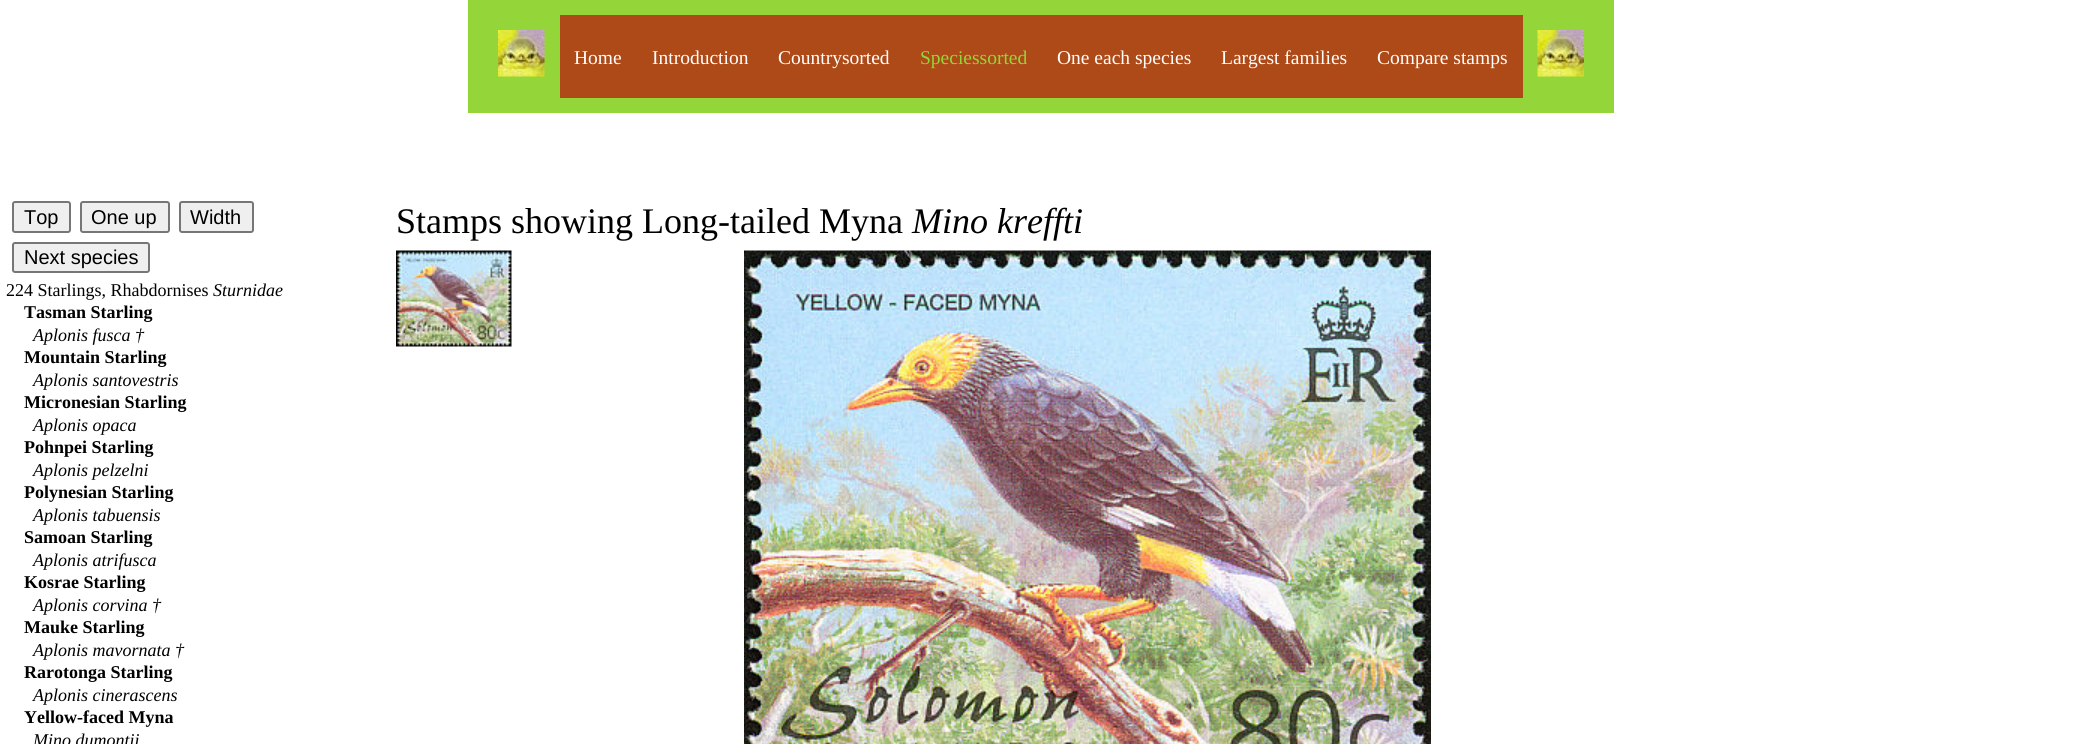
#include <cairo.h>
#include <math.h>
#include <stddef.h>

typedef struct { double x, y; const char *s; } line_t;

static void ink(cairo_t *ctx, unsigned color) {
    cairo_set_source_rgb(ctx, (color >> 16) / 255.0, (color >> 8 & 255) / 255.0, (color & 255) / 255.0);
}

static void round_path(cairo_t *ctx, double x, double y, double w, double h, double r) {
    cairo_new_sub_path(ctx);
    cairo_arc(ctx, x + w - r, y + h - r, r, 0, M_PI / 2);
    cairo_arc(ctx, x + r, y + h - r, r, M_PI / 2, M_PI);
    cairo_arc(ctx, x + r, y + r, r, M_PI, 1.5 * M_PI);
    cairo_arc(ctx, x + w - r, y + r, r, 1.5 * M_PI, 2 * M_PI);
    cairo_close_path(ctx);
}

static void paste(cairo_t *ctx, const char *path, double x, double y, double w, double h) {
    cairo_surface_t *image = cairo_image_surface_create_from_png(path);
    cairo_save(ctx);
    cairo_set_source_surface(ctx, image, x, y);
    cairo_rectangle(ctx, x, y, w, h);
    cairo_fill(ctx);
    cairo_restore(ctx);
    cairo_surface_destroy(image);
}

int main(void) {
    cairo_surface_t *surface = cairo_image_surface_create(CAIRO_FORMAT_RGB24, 2081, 744);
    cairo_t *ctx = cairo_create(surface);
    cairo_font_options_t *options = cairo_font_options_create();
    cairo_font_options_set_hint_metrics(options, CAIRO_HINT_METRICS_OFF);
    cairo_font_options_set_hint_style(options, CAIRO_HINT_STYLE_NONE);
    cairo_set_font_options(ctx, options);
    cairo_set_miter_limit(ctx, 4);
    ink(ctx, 0xFFFFFF);
    cairo_paint(ctx);
    ink(ctx, 0x94D639);
    cairo_rectangle(ctx, 468, 0, 1146, 113);
    cairo_fill(ctx);
    paste(ctx, "media/1.png", 498, 30, 47, 47);
    ink(ctx, 0xAD4A18);
    cairo_rectangle(ctx, 560, 15, 963, 83);
    cairo_fill(ctx);
    cairo_select_font_face(ctx, "Liberation Serif", CAIRO_FONT_SLANT_NORMAL, CAIRO_FONT_WEIGHT_NORMAL);
    cairo_set_font_size(ctx, 19.5);
    ink(ctx, 0xFFFFFF);
    {
        static const line_t items[] = {
            {574, 64, "Home"},
            {652, 64, "Introduction"},
            {778, 64, "Countrysorted"},
        };
        for (size_t i = 0; i < sizeof items / sizeof *items; i++) {
            cairo_move_to(ctx, items[i].x, items[i].y);
            cairo_show_text(ctx, items[i].s);
        }
    }
    ink(ctx, 0x94D639);
    cairo_move_to(ctx, 920, 64);
    cairo_show_text(ctx, "Speciessorted");
    ink(ctx, 0xFFFFFF);
    {
        static const line_t items[] = {
            {1057, 64, "One each species"},
            {1221, 64, "Largest families"},
            {1377, 64, "Compare stamps"},
        };
        for (size_t i = 0; i < sizeof items / sizeof *items; i++) {
            cairo_move_to(ctx, items[i].x, items[i].y);
            cairo_show_text(ctx, items[i].s);
        }
    }
    paste(ctx, "media/2.png", 1537, 30, 47, 47);
    ink(ctx, 0xEFEFEF);
    round_path(ctx, 13, 202, 57, 30, 2);
    cairo_fill_preserve(ctx);
    ink(ctx, 0x767676);
    cairo_stroke(ctx);
    cairo_select_font_face(ctx, "Liberation Sans", CAIRO_FONT_SLANT_NORMAL, CAIRO_FONT_WEIGHT_NORMAL);
    cairo_set_font_size(ctx, 20);
    ink(ctx, 0x000000);
    cairo_move_to(ctx, 24, 224);
    cairo_show_text(ctx, "Top");
    ink(ctx, 0xEFEFEF);
    round_path(ctx, 81, 202, 88, 30, 2);
    cairo_fill_preserve(ctx);
    ink(ctx, 0x767676);
    cairo_stroke(ctx);
    ink(ctx, 0x000000);
    cairo_move_to(ctx, 91, 224);
    cairo_show_text(ctx, "One up");
    ink(ctx, 0xEFEFEF);
    round_path(ctx, 180, 202, 73, 30, 2);
    cairo_fill_preserve(ctx);
    ink(ctx, 0x767676);
    cairo_stroke(ctx);
    ink(ctx, 0x000000);
    cairo_move_to(ctx, 190, 224);
    cairo_show_text(ctx, "Width");
    ink(ctx, 0xEFEFEF);
    round_path(ctx, 13, 243, 136, 29, 2);
    cairo_fill_preserve(ctx);
    ink(ctx, 0x767676);
    cairo_stroke(ctx);
    ink(ctx, 0x000000);
    cairo_move_to(ctx, 24, 264);
    cairo_show_text(ctx, "Next species");
    cairo_select_font_face(ctx, "Liberation Serif", CAIRO_FONT_SLANT_NORMAL, CAIRO_FONT_WEIGHT_NORMAL);
    cairo_set_font_size(ctx, 18);
    cairo_move_to(ctx, 6, 296);
    cairo_show_text(ctx, "224 Starlings, Rhabdornises");
    cairo_select_font_face(ctx, "Liberation Serif", CAIRO_FONT_SLANT_ITALIC, CAIRO_FONT_WEIGHT_NORMAL);
    cairo_move_to(ctx, 213, 296);
    cairo_show_text(ctx, "Sturnidae");
    cairo_select_font_face(ctx, "Liberation Serif", CAIRO_FONT_SLANT_NORMAL, CAIRO_FONT_WEIGHT_BOLD);
    cairo_move_to(ctx, 24, 318);
    cairo_show_text(ctx, "Tasman Starling");
    cairo_select_font_face(ctx, "Liberation Serif", CAIRO_FONT_SLANT_ITALIC, CAIRO_FONT_WEIGHT_NORMAL);
    cairo_move_to(ctx, 33, 341);
    cairo_show_text(ctx, "Aplonis fusca †");
    cairo_select_font_face(ctx, "Liberation Serif", CAIRO_FONT_SLANT_NORMAL, CAIRO_FONT_WEIGHT_BOLD);
    cairo_move_to(ctx, 24, 363);
    cairo_show_text(ctx, "Mountain Starling");
    cairo_select_font_face(ctx, "Liberation Serif", CAIRO_FONT_SLANT_ITALIC, CAIRO_FONT_WEIGHT_NORMAL);
    cairo_move_to(ctx, 33, 386);
    cairo_show_text(ctx, "Aplonis santovestris");
    cairo_select_font_face(ctx, "Liberation Serif", CAIRO_FONT_SLANT_NORMAL, CAIRO_FONT_WEIGHT_BOLD);
    cairo_move_to(ctx, 24, 408);
    cairo_show_text(ctx, "Micronesian Starling");
    cairo_select_font_face(ctx, "Liberation Serif", CAIRO_FONT_SLANT_ITALIC, CAIRO_FONT_WEIGHT_NORMAL);
    cairo_move_to(ctx, 33, 431);
    cairo_show_text(ctx, "Aplonis opaca");
    cairo_select_font_face(ctx, "Liberation Serif", CAIRO_FONT_SLANT_NORMAL, CAIRO_FONT_WEIGHT_BOLD);
    cairo_move_to(ctx, 24, 453);
    cairo_show_text(ctx, "Pohnpei Starling");
    cairo_select_font_face(ctx, "Liberation Serif", CAIRO_FONT_SLANT_ITALIC, CAIRO_FONT_WEIGHT_NORMAL);
    cairo_move_to(ctx, 33, 476);
    cairo_show_text(ctx, "Aplonis pelzelni");
    cairo_select_font_face(ctx, "Liberation Serif", CAIRO_FONT_SLANT_NORMAL, CAIRO_FONT_WEIGHT_BOLD);
    cairo_move_to(ctx, 24, 498);
    cairo_show_text(ctx, "Polynesian Starling");
    cairo_select_font_face(ctx, "Liberation Serif", CAIRO_FONT_SLANT_ITALIC, CAIRO_FONT_WEIGHT_NORMAL);
    cairo_move_to(ctx, 33, 521);
    cairo_show_text(ctx, "Aplonis tabuensis");
    cairo_select_font_face(ctx, "Liberation Serif", CAIRO_FONT_SLANT_NORMAL, CAIRO_FONT_WEIGHT_BOLD);
    cairo_move_to(ctx, 24, 543);
    cairo_show_text(ctx, "Samoan Starling");
    cairo_select_font_face(ctx, "Liberation Serif", CAIRO_FONT_SLANT_ITALIC, CAIRO_FONT_WEIGHT_NORMAL);
    cairo_move_to(ctx, 33, 566);
    cairo_show_text(ctx, "Aplonis atrifusca");
    cairo_select_font_face(ctx, "Liberation Serif", CAIRO_FONT_SLANT_NORMAL, CAIRO_FONT_WEIGHT_BOLD);
    cairo_move_to(ctx, 24, 588);
    cairo_show_text(ctx, "Kosrae Starling");
    cairo_select_font_face(ctx, "Liberation Serif", CAIRO_FONT_SLANT_ITALIC, CAIRO_FONT_WEIGHT_NORMAL);
    cairo_move_to(ctx, 33, 611);
    cairo_show_text(ctx, "Aplonis corvina †");
    cairo_select_font_face(ctx, "Liberation Serif", CAIRO_FONT_SLANT_NORMAL, CAIRO_FONT_WEIGHT_BOLD);
    cairo_move_to(ctx, 24, 633);
    cairo_show_text(ctx, "Mauke Starling");
    cairo_select_font_face(ctx, "Liberation Serif", CAIRO_FONT_SLANT_ITALIC, CAIRO_FONT_WEIGHT_NORMAL);
    cairo_move_to(ctx, 33, 656);
    cairo_show_text(ctx, "Aplonis mavornata †");
    cairo_select_font_face(ctx, "Liberation Serif", CAIRO_FONT_SLANT_NORMAL, CAIRO_FONT_WEIGHT_BOLD);
    cairo_move_to(ctx, 24, 678);
    cairo_show_text(ctx, "Rarotonga Starling");
    cairo_select_font_face(ctx, "Liberation Serif", CAIRO_FONT_SLANT_ITALIC, CAIRO_FONT_WEIGHT_NORMAL);
    cairo_move_to(ctx, 33, 701);
    cairo_show_text(ctx, "Aplonis cinerascens");
    cairo_select_font_face(ctx, "Liberation Serif", CAIRO_FONT_SLANT_NORMAL, CAIRO_FONT_WEIGHT_BOLD);
    cairo_move_to(ctx, 24, 723);
    cairo_show_text(ctx, "Yellow-faced Myna");
    cairo_select_font_face(ctx, "Liberation Serif", CAIRO_FONT_SLANT_ITALIC, CAIRO_FONT_WEIGHT_NORMAL);
    cairo_move_to(ctx, 33, 746);
    cairo_show_text(ctx, "Mino dumontii");
    cairo_select_font_face(ctx, "Liberation Serif", CAIRO_FONT_SLANT_NORMAL, CAIRO_FONT_WEIGHT_NORMAL);
    cairo_set_font_size(ctx, 36);
    cairo_move_to(ctx, 396, 233);
    cairo_show_text(ctx, "Stamps showing Long-tailed Myna");
    cairo_select_font_face(ctx, "Liberation Serif", CAIRO_FONT_SLANT_ITALIC, CAIRO_FONT_WEIGHT_NORMAL);
    cairo_move_to(ctx, 912, 233);
    cairo_show_text(ctx, "Mino kreffti");
    paste(ctx, "media/3.png", 396, 250, 116, 97);
    paste(ctx, "media/4.png", 744, 250, 687, 494);
    cairo_surface_write_to_png(surface, "image.png");
    cairo_font_options_destroy(options);
    cairo_destroy(ctx);
    cairo_surface_destroy(surface);
    return 0;
}
